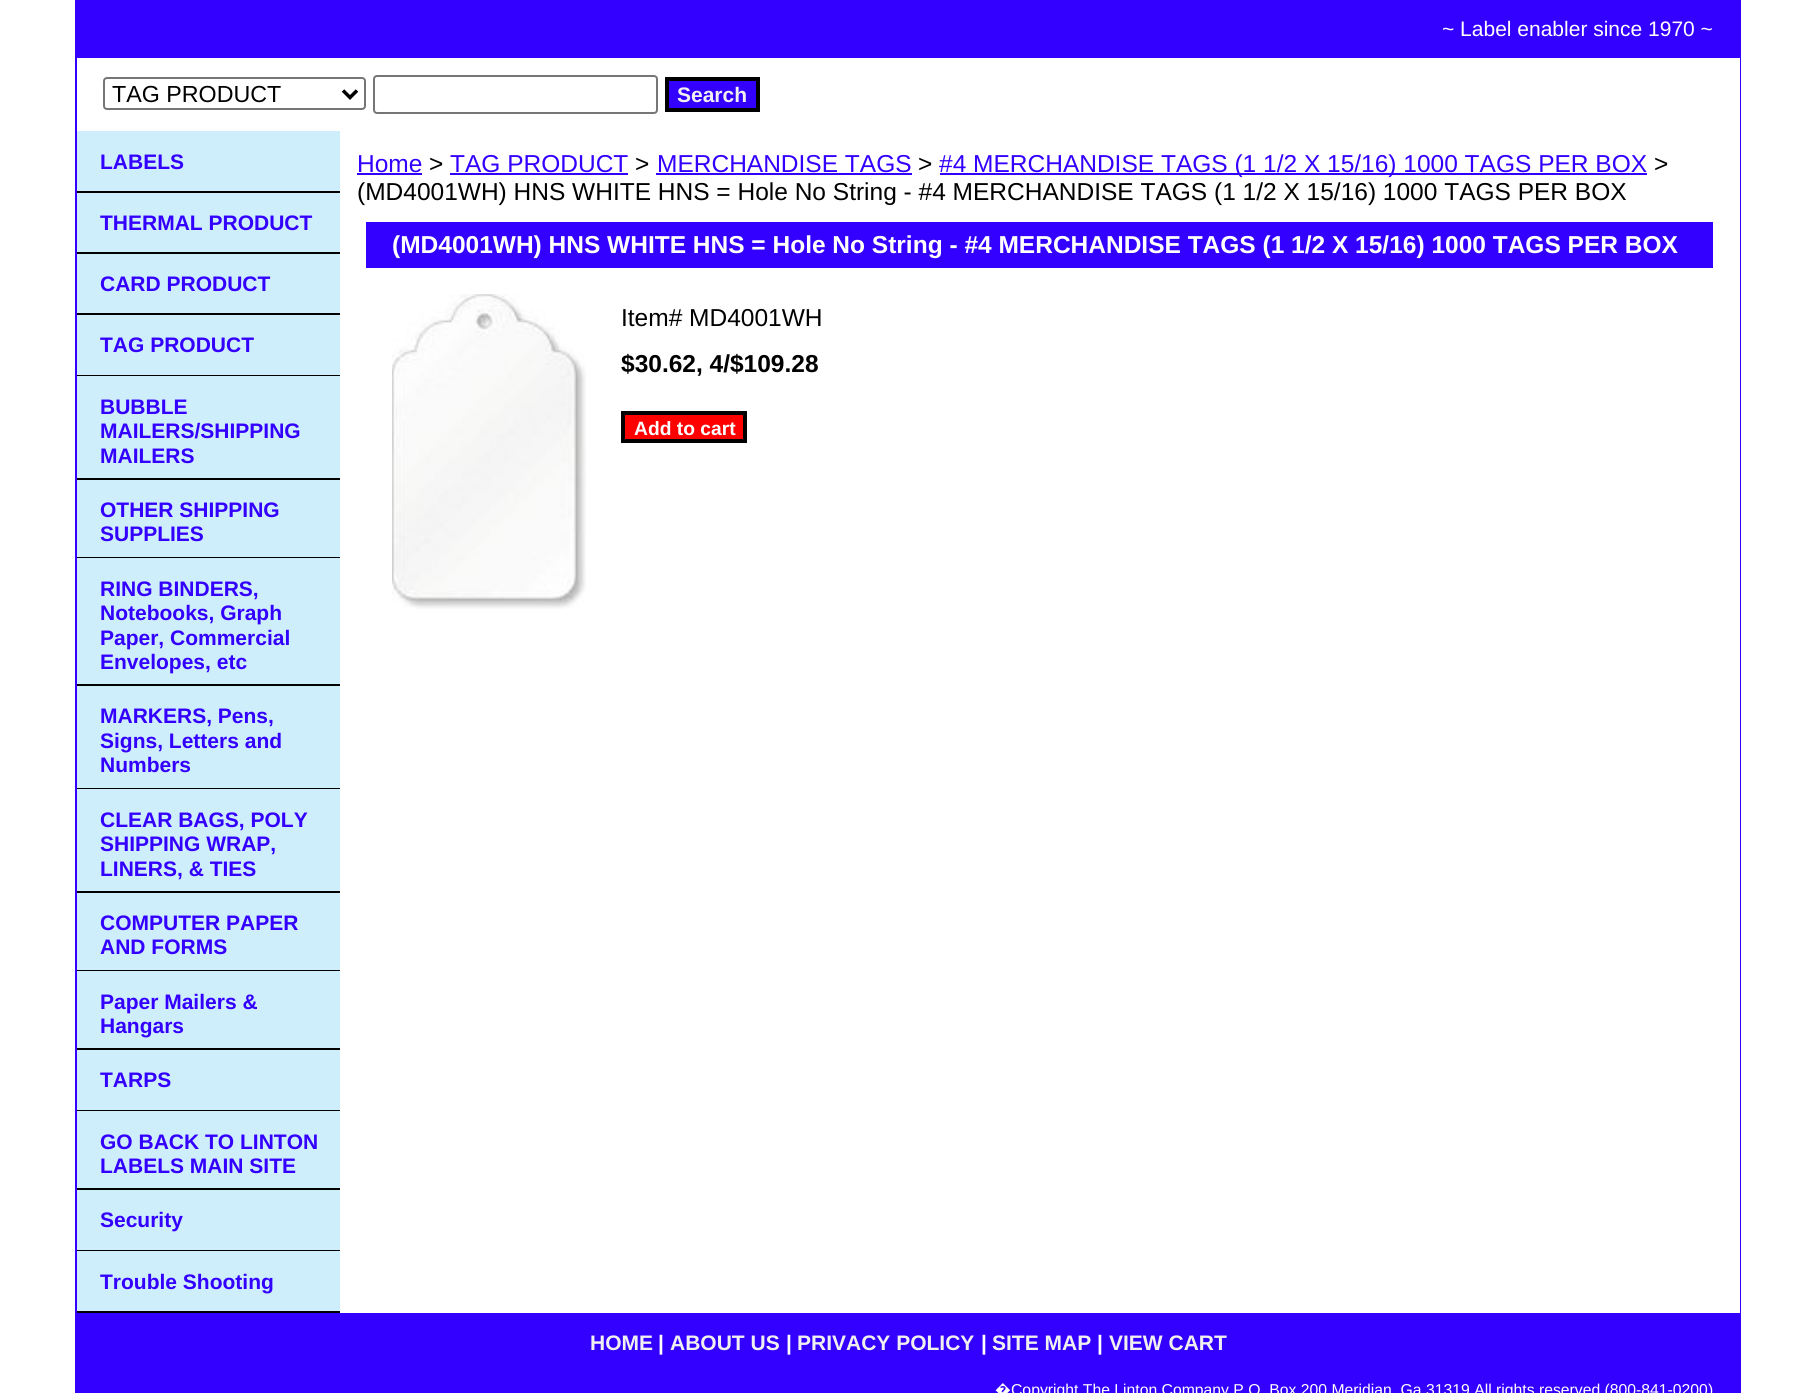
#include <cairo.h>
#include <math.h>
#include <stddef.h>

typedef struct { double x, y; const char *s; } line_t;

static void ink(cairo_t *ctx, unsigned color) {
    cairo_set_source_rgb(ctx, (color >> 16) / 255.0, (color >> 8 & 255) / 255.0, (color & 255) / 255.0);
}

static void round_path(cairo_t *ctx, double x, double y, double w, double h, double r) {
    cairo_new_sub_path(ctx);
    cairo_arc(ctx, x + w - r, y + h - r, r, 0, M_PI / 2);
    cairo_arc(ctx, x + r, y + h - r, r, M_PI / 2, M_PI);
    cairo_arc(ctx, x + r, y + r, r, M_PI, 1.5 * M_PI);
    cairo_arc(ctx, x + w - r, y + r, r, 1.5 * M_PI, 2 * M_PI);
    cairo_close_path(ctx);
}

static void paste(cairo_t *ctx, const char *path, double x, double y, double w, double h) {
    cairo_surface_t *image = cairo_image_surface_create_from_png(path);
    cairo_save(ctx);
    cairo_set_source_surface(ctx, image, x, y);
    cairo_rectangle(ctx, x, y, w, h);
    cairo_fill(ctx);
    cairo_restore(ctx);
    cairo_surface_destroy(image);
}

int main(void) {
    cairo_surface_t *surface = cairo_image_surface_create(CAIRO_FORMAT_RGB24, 1815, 1393);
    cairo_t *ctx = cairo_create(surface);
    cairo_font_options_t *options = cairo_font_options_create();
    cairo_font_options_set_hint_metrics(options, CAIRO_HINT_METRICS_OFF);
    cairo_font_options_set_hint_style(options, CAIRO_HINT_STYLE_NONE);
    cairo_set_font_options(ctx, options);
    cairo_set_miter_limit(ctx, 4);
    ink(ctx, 0xFFFFFF);
    cairo_paint(ctx);
    cairo_rectangle(ctx, 76, -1, 1664, 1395);
    ink(ctx, 0x3300FF);
    cairo_stroke(ctx);
    cairo_rectangle(ctx, 77, 0, 1662, 58);
    cairo_fill(ctx);
    cairo_select_font_face(ctx, "Liberation Sans", CAIRO_FONT_SLANT_NORMAL, CAIRO_FONT_WEIGHT_NORMAL);
    cairo_set_font_size(ctx, 21);
    ink(ctx, 0xFFFFFF);
    cairo_move_to(ctx, 1442, 36);
    cairo_show_text(ctx, "~ Label enabler since 1970 ~");
    cairo_rectangle(ctx, 1739, 58, 1, 1255);
    cairo_fill(ctx);
    round_path(ctx, 104, 78, 261, 31, 3);
    ink(ctx, 0x767676);
    cairo_stroke(ctx);
    cairo_new_path(ctx);
    cairo_move_to(ctx, 343, 90.5);
    cairo_line_to(ctx, 350, 97.5);
    cairo_line_to(ctx, 357, 90.5);
    ink(ctx, 0x000000);
    cairo_set_line_width(ctx, 3.5);
    cairo_stroke(ctx);
    cairo_set_font_size(ctx, 23.25);
    cairo_move_to(ctx, 112, 102);
    cairo_show_text(ctx, "TAG PRODUCT");
    round_path(ctx, 374, 76, 283, 37, 3);
    ink(ctx, 0x767676);
    cairo_set_line_width(ctx, 2);
    cairo_stroke(ctx);
    ink(ctx, 0x3300FF);
    cairo_rectangle(ctx, 667, 79, 91, 31);
    cairo_fill_preserve(ctx);
    ink(ctx, 0x000000);
    cairo_set_line_width(ctx, 4);
    cairo_stroke(ctx);
    cairo_select_font_face(ctx, "Liberation Sans", CAIRO_FONT_SLANT_NORMAL, CAIRO_FONT_WEIGHT_BOLD);
    cairo_set_font_size(ctx, 21);
    ink(ctx, 0xF0F0F0);
    cairo_move_to(ctx, 677, 102);
    cairo_show_text(ctx, "Search");
    ink(ctx, 0xCEEEFC);
    cairo_rectangle(ctx, 77, 131, 263, 1119);
    cairo_fill(ctx);
    ink(ctx, 0x000000);
    cairo_rectangle(ctx, 77, 191, 263, 2);
    cairo_fill(ctx);
    ink(ctx, 0x3300FF);
    cairo_move_to(ctx, 100, 169);
    cairo_show_text(ctx, "LABELS");
    ink(ctx, 0x000000);
    cairo_rectangle(ctx, 77, 252, 263, 2);
    cairo_fill(ctx);
    ink(ctx, 0x3300FF);
    cairo_move_to(ctx, 100, 230);
    cairo_show_text(ctx, "THERMAL PRODUCT");
    ink(ctx, 0x000000);
    cairo_rectangle(ctx, 77, 313, 263, 2);
    cairo_fill(ctx);
    ink(ctx, 0x3300FF);
    cairo_move_to(ctx, 100, 291);
    cairo_show_text(ctx, "CARD PRODUCT");
    ink(ctx, 0x000000);
    cairo_rectangle(ctx, 77, 375, 263, 1);
    cairo_fill(ctx);
    ink(ctx, 0x3300FF);
    cairo_move_to(ctx, 100, 352);
    cairo_show_text(ctx, "TAG PRODUCT");
    ink(ctx, 0x000000);
    cairo_rectangle(ctx, 77, 478, 263, 2);
    cairo_fill(ctx);
    ink(ctx, 0x3300FF);
    {
        static const line_t items[] = {
            {100, 414, "BUBBLE"},
            {100, 438, "MAILERS/SHIPPING"},
            {100, 463, "MAILERS"},
        };
        for (size_t i = 0; i < sizeof items / sizeof *items; i++) {
            cairo_move_to(ctx, items[i].x, items[i].y);
            cairo_show_text(ctx, items[i].s);
        }
    }
    ink(ctx, 0x000000);
    cairo_rectangle(ctx, 77, 557, 263, 1);
    cairo_fill(ctx);
    ink(ctx, 0x3300FF);
    cairo_move_to(ctx, 100, 517);
    cairo_show_text(ctx, "OTHER SHIPPING");
    cairo_move_to(ctx, 100, 541);
    cairo_show_text(ctx, "SUPPLIES");
    ink(ctx, 0x000000);
    cairo_rectangle(ctx, 77, 684, 263, 2);
    cairo_fill(ctx);
    ink(ctx, 0x3300FF);
    {
        static const line_t items[] = {
            {100, 596, "RING BINDERS,"},
            {100, 620, "Notebooks, Graph"},
            {100, 645, "Paper, Commercial"},
            {100, 669, "Envelopes, etc"},
        };
        for (size_t i = 0; i < sizeof items / sizeof *items; i++) {
            cairo_move_to(ctx, items[i].x, items[i].y);
            cairo_show_text(ctx, items[i].s);
        }
    }
    ink(ctx, 0x000000);
    cairo_rectangle(ctx, 77, 788, 263, 1);
    cairo_fill(ctx);
    ink(ctx, 0x3300FF);
    {
        static const line_t items[] = {
            {100, 723, "MARKERS, Pens,"},
            {100, 748, "Signs, Letters and"},
            {100, 772, "Numbers"},
        };
        for (size_t i = 0; i < sizeof items / sizeof *items; i++) {
            cairo_move_to(ctx, items[i].x, items[i].y);
            cairo_show_text(ctx, items[i].s);
        }
    }
    ink(ctx, 0x000000);
    cairo_rectangle(ctx, 77, 891, 263, 2);
    cairo_fill(ctx);
    ink(ctx, 0x3300FF);
    {
        static const line_t items[] = {
            {100, 827, "CLEAR BAGS, POLY"},
            {100, 851, "SHIPPING WRAP,"},
            {100, 876, "LINERS, & TIES"},
        };
        for (size_t i = 0; i < sizeof items / sizeof *items; i++) {
            cairo_move_to(ctx, items[i].x, items[i].y);
            cairo_show_text(ctx, items[i].s);
        }
    }
    ink(ctx, 0x000000);
    cairo_rectangle(ctx, 77, 970, 263, 1);
    cairo_fill(ctx);
    ink(ctx, 0x3300FF);
    cairo_move_to(ctx, 100, 930);
    cairo_show_text(ctx, "COMPUTER PAPER");
    cairo_move_to(ctx, 100, 954);
    cairo_show_text(ctx, "AND FORMS");
    ink(ctx, 0x000000);
    cairo_rectangle(ctx, 77, 1048, 263, 2);
    cairo_fill(ctx);
    ink(ctx, 0x3300FF);
    cairo_move_to(ctx, 100, 1009);
    cairo_show_text(ctx, "Paper Mailers &");
    cairo_move_to(ctx, 100, 1033);
    cairo_show_text(ctx, "Hangars");
    ink(ctx, 0x000000);
    cairo_rectangle(ctx, 77, 1110, 263, 1);
    cairo_fill(ctx);
    ink(ctx, 0x3300FF);
    cairo_move_to(ctx, 100, 1087);
    cairo_show_text(ctx, "TARPS");
    ink(ctx, 0x000000);
    cairo_rectangle(ctx, 77, 1188, 263, 2);
    cairo_fill(ctx);
    ink(ctx, 0x3300FF);
    cairo_move_to(ctx, 100, 1149);
    cairo_show_text(ctx, "GO BACK TO LINTON");
    cairo_move_to(ctx, 100, 1173);
    cairo_show_text(ctx, "LABELS MAIN SITE");
    ink(ctx, 0x000000);
    cairo_rectangle(ctx, 77, 1250, 263, 1);
    cairo_fill(ctx);
    ink(ctx, 0x3300FF);
    cairo_move_to(ctx, 100, 1227);
    cairo_show_text(ctx, "Security");
    ink(ctx, 0xCEEEFC);
    cairo_rectangle(ctx, 77, 1251, 263, 60);
    cairo_fill(ctx);
    ink(ctx, 0x000000);
    cairo_rectangle(ctx, 77, 1311, 263, 2);
    cairo_fill(ctx);
    ink(ctx, 0x3300FF);
    cairo_move_to(ctx, 100, 1289);
    cairo_show_text(ctx, "Trouble Shooting");
    cairo_select_font_face(ctx, "Liberation Sans", CAIRO_FONT_SLANT_NORMAL, CAIRO_FONT_WEIGHT_NORMAL);
    cairo_set_font_size(ctx, 24.5);
    cairo_move_to(ctx, 357, 172);
    cairo_show_text(ctx, "Home");
    cairo_rectangle(ctx, 357, 173, 65, 2);
    cairo_fill(ctx);
    ink(ctx, 0x000000);
    cairo_move_to(ctx, 429, 172);
    cairo_show_text(ctx, ">");
    ink(ctx, 0x3300FF);
    cairo_move_to(ctx, 450, 172);
    cairo_show_text(ctx, "TAG PRODUCT");
    cairo_rectangle(ctx, 450, 173, 178, 2);
    cairo_fill(ctx);
    ink(ctx, 0x000000);
    cairo_move_to(ctx, 635, 172);
    cairo_show_text(ctx, ">");
    ink(ctx, 0x3300FF);
    cairo_move_to(ctx, 657, 172);
    cairo_show_text(ctx, "MERCHANDISE TAGS");
    cairo_rectangle(ctx, 656, 173, 256, 2);
    cairo_fill(ctx);
    ink(ctx, 0x000000);
    cairo_move_to(ctx, 918, 172);
    cairo_show_text(ctx, ">");
    ink(ctx, 0x3300FF);
    cairo_rectangle(ctx, 940, 173, 707, 2);
    cairo_fill(ctx);
    cairo_move_to(ctx, 939, 172);
    cairo_show_text(ctx, "#4 MERCHANDISE TAGS (1 1/2 X 15/16) 1000 TAGS PER BOX");
    ink(ctx, 0x000000);
    cairo_move_to(ctx, 1654, 172);
    cairo_show_text(ctx, ">");
    cairo_move_to(ctx, 357, 200);
    cairo_show_text(ctx, "(MD4001WH) HNS WHITE HNS = Hole No String - #4 MERCHANDISE TAGS (1 1/2 X 15/16) 1000 TAGS PER BOX");
    ink(ctx, 0x3300FF);
    cairo_rectangle(ctx, 366, 222, 1347, 46);
    cairo_fill(ctx);
    cairo_select_font_face(ctx, "Liberation Sans", CAIRO_FONT_SLANT_NORMAL, CAIRO_FONT_WEIGHT_BOLD);
    ink(ctx, 0xFFFFFF);
    cairo_move_to(ctx, 392, 253);
    cairo_show_text(ctx, "(MD4001WH) HNS WHITE HNS = Hole No String - #4 MERCHANDISE TAGS (1 1/2 X 15/16) 1000 TAGS PER BOX");
    paste(ctx, "media/1.png", 392, 294, 194, 315);
    cairo_select_font_face(ctx, "Liberation Sans", CAIRO_FONT_SLANT_NORMAL, CAIRO_FONT_WEIGHT_NORMAL);
    ink(ctx, 0x000000);
    cairo_move_to(ctx, 621, 326);
    cairo_show_text(ctx, "Item# MD4001WH");
    cairo_select_font_face(ctx, "Liberation Sans", CAIRO_FONT_SLANT_NORMAL, CAIRO_FONT_WEIGHT_BOLD);
    cairo_move_to(ctx, 621, 372);
    cairo_show_text(ctx, "$30.62, 4/$109.28");
    ink(ctx, 0xFF0000);
    cairo_rectangle(ctx, 623, 413, 122, 28);
    cairo_fill_preserve(ctx);
    ink(ctx, 0x000000);
    cairo_stroke(ctx);
    cairo_set_font_size(ctx, 19.25);
    ink(ctx, 0xFFFFFF);
    cairo_move_to(ctx, 634, 435);
    cairo_show_text(ctx, "Add to cart");
    ink(ctx, 0x3300FF);
    cairo_rectangle(ctx, 77, 1313, 1662, 80);
    cairo_fill(ctx);
    cairo_set_font_size(ctx, 21);
    ink(ctx, 0xF0F0F0);
    cairo_move_to(ctx, 590, 1350);
    cairo_show_text(ctx, "HOME");
    ink(ctx, 0xFFFFFF);
    cairo_move_to(ctx, 658, 1350);
    cairo_show_text(ctx, "|");
    ink(ctx, 0xF0F0F0);
    cairo_move_to(ctx, 670, 1350);
    cairo_show_text(ctx, "ABOUT US");
    ink(ctx, 0xFFFFFF);
    cairo_move_to(ctx, 786, 1350);
    cairo_show_text(ctx, "|");
    ink(ctx, 0xF0F0F0);
    cairo_move_to(ctx, 797, 1350);
    cairo_show_text(ctx, "PRIVACY POLICY");
    ink(ctx, 0xFFFFFF);
    cairo_move_to(ctx, 981, 1350);
    cairo_show_text(ctx, "|");
    ink(ctx, 0xF0F0F0);
    cairo_move_to(ctx, 992, 1350);
    cairo_show_text(ctx, "SITE MAP");
    ink(ctx, 0xFFFFFF);
    cairo_move_to(ctx, 1097, 1350);
    cairo_show_text(ctx, "|");
    ink(ctx, 0xF0F0F0);
    cairo_move_to(ctx, 1109, 1350);
    cairo_show_text(ctx, "VIEW CART");
    cairo_select_font_face(ctx, "Noto Sans", CAIRO_FONT_SLANT_NORMAL, CAIRO_FONT_WEIGHT_NORMAL);
    cairo_set_font_size(ctx, 15.75);
    ink(ctx, 0xFFFFFF);
    cairo_move_to(ctx, 995, 1395);
    cairo_show_text(ctx, "�");
    cairo_select_font_face(ctx, "Liberation Sans", CAIRO_FONT_SLANT_NORMAL, CAIRO_FONT_WEIGHT_NORMAL);
    cairo_move_to(ctx, 1011, 1395);
    cairo_show_text(ctx, "Copyright The Linton Company P.O. Box 200 Meridian, Ga 31319 All rights reserved (800-841-0200)");
    cairo_surface_write_to_png(surface, "image.png");
    cairo_font_options_destroy(options);
    cairo_destroy(ctx);
    cairo_surface_destroy(surface);
    return 0;
}
